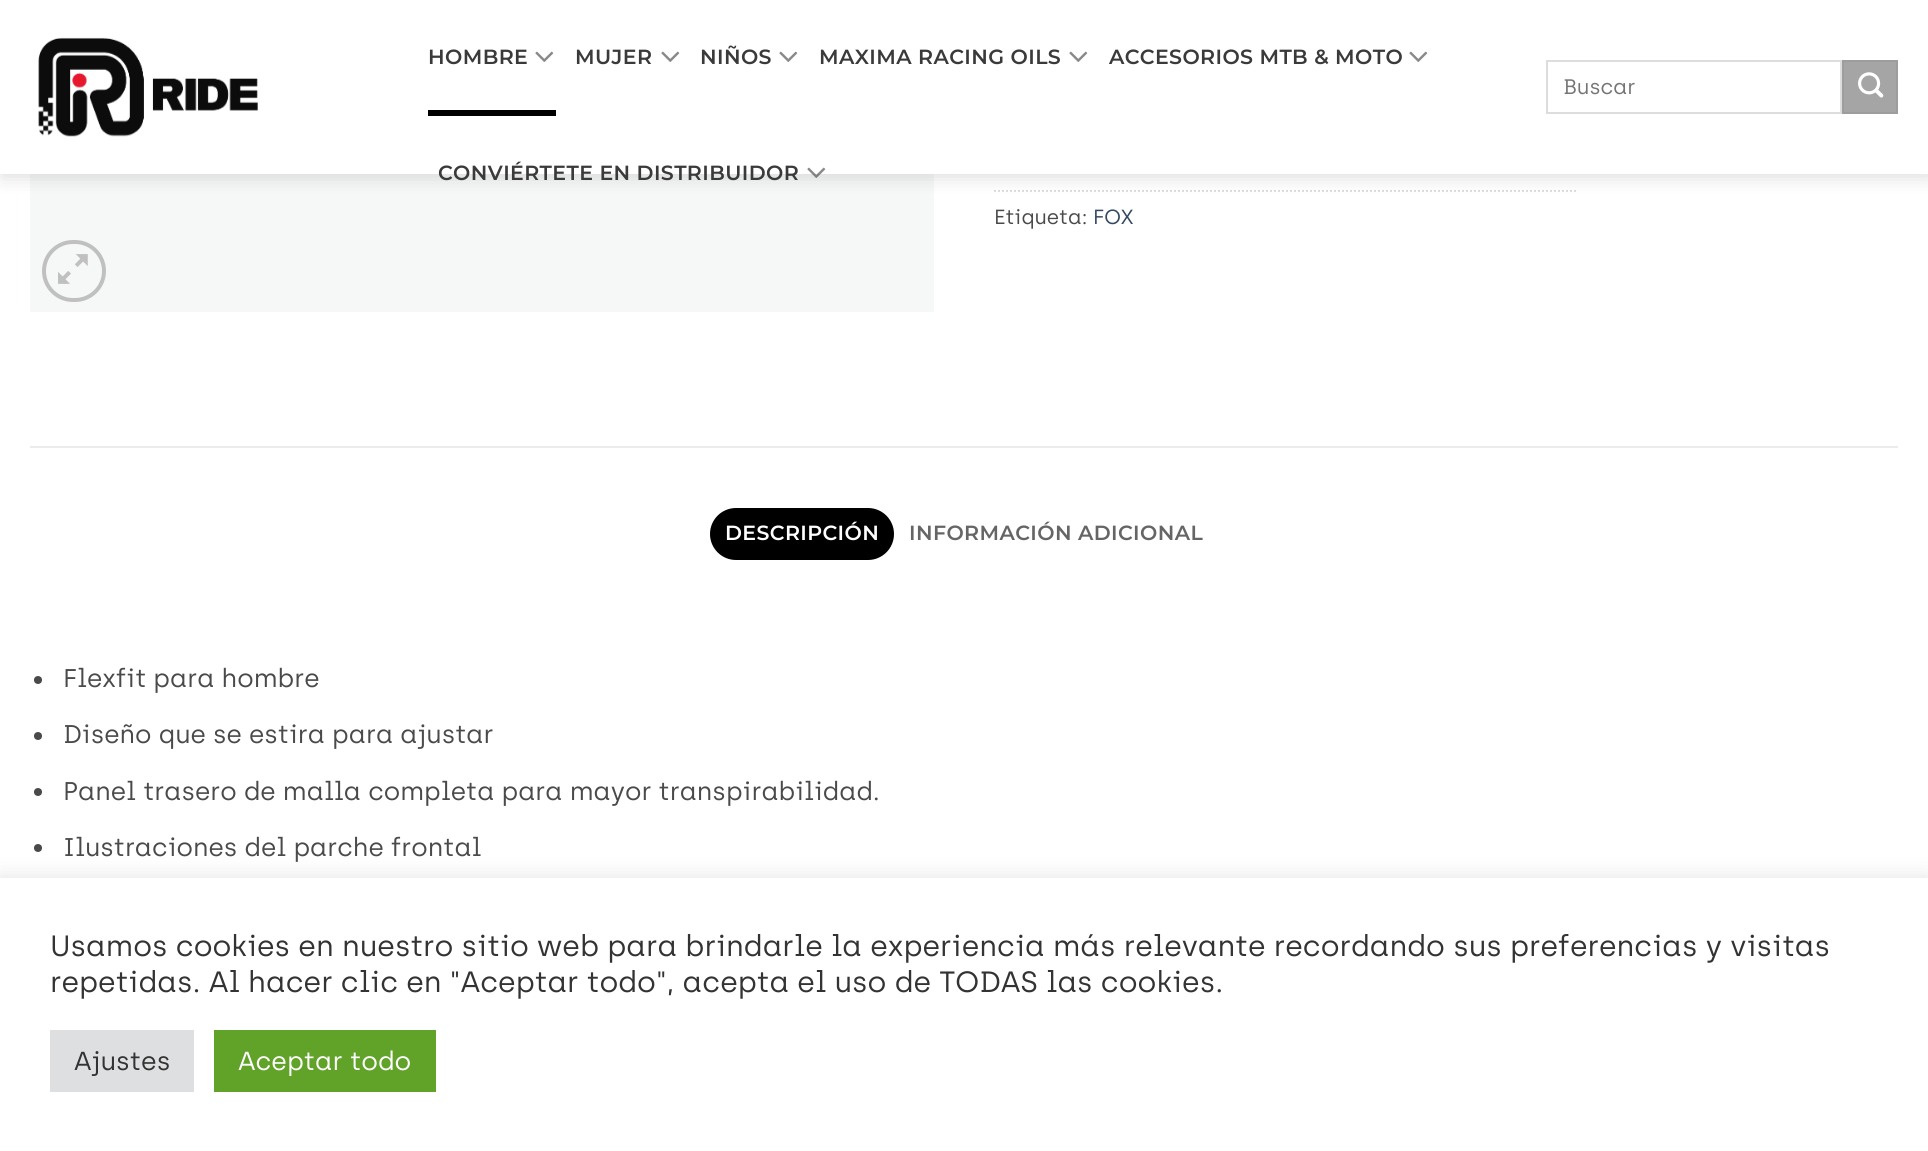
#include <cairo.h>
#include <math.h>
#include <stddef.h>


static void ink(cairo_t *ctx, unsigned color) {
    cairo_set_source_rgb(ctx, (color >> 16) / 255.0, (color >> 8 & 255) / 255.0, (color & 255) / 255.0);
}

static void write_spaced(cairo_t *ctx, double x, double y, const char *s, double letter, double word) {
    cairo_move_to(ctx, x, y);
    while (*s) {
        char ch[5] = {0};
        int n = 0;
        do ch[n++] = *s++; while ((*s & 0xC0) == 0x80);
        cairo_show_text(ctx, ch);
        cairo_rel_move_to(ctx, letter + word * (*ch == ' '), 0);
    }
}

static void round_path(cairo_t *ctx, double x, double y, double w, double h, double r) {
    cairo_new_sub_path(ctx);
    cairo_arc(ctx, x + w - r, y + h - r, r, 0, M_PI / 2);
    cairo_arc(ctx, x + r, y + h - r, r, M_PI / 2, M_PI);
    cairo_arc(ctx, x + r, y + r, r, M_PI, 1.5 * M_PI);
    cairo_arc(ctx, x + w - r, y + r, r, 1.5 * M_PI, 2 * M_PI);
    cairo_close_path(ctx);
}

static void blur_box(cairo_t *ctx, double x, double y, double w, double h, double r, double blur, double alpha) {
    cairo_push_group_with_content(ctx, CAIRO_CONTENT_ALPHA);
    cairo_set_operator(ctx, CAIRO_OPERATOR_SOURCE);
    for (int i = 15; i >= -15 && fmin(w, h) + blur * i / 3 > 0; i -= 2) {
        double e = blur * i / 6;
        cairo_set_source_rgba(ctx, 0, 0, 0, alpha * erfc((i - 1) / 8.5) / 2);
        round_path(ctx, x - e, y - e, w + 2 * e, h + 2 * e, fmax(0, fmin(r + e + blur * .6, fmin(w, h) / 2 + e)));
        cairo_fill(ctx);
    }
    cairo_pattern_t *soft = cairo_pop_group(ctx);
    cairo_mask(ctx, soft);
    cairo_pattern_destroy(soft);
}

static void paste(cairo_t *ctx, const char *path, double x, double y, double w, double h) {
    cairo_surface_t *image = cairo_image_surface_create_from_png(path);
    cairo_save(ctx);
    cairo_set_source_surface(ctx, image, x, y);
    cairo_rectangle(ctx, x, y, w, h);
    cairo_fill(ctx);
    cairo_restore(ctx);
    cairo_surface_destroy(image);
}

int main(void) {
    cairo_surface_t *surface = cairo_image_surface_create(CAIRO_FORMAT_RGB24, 1928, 1151);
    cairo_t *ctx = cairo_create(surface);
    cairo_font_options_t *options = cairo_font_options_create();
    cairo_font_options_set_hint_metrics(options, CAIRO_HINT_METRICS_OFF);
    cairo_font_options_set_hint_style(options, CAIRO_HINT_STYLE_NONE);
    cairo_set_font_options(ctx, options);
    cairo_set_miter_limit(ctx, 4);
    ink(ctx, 0xFFFFFF);
    cairo_paint(ctx);
    paste(ctx, "media/5.png", 30, 174, 904, 138);
    cairo_new_path(ctx);
    cairo_move_to(ctx, 994, 191);
    cairo_line_to(ctx, 1576, 191);
    ink(ctx, 0xDDDDDD);
    cairo_set_dash(ctx, (double[]){2, 2}, 2, 0);
    cairo_stroke(ctx);
    ink(ctx, 0x000000);
    blur_box(ctx, 2, 2, 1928, 174, 0, 10, 0.15);
    ink(ctx, 0xFFFFFF);
    cairo_rectangle(ctx, 0, 0, 1928, 174);
    cairo_fill(ctx);
    paste(ctx, "media/1.png", 38, 37, 220, 100);
    cairo_select_font_face(ctx, "Montserrat SemiBold", CAIRO_FONT_SLANT_NORMAL, CAIRO_FONT_WEIGHT_NORMAL);
    cairo_set_font_size(ctx, 20.5);
    ink(ctx, 0x3A3A3A);
    write_spaced(ctx, 428, 64, "HOMBRE", 0.4, 0);
    paste(ctx, "media/2.png", 535, 51, 19, 11);
    ink(ctx, 0x000000);
    cairo_rectangle(ctx, 428, 110, 128, 6);
    cairo_fill(ctx);
    ink(ctx, 0x3A3A3A);
    write_spaced(ctx, 575, 64, "MUJER", 0.4, 0);
    paste(ctx, "media/2.png", 661, 51, 19, 11);
    write_spaced(ctx, 700, 64, "NIÑOS", 0.4, 0);
    paste(ctx, "media/2.png", 779, 51, 19, 11);
    write_spaced(ctx, 819, 64, "MAXIMA RACING OILS", 0.4, 0);
    paste(ctx, "media/2.png", 1069, 51, 19, 11);
    write_spaced(ctx, 1109, 64, "ACCESORIOS MTB & MOTO", 0.4, 0);
    paste(ctx, "media/2.png", 1409, 51, 19, 11);
    write_spaced(ctx, 438, 180, "CONVIÉRTETE EN DISTRIBUIDOR", 0.4, 0);
    paste(ctx, "media/3.png", 807, 167, 19, 11);
    cairo_rectangle(ctx, 1547, 61, 294, 52);
    ink(ctx, 0xDDDDDD);
    cairo_set_dash(ctx, NULL, 0, 0);
    cairo_stroke(ctx);
    cairo_select_font_face(ctx, "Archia", CAIRO_FONT_SLANT_NORMAL, CAIRO_FONT_WEIGHT_NORMAL);
    cairo_set_font_size(ctx, 21);
    ink(ctx, 0x757575);
    cairo_move_to(ctx, 1563, 94);
    cairo_show_text(ctx, "Buscar");
    ink(ctx, 0xA5A5A5);
    cairo_rectangle(ctx, 1843, 61, 54, 52);
    cairo_fill_preserve(ctx);
    ink(ctx, 0x9D9D9D);
    cairo_stroke(ctx);
    paste(ctx, "media/4.png", 1858, 72, 26, 26);
    round_path(ctx, 44, 242, 60, 58, 29);
    ink(ctx, 0xC0C0C0);
    cairo_set_line_width(ctx, 4);
    cairo_stroke(ctx);
    paste(ctx, "media/6.png", 58, 254, 30, 30);
    cairo_set_font_size(ctx, 20.5);
    ink(ctx, 0x4A4A4A);
    cairo_move_to(ctx, 994, 224);
    cairo_show_text(ctx, "Etiqueta:");
    ink(ctx, 0x334862);
    cairo_move_to(ctx, 1093, 224);
    cairo_show_text(ctx, "FOX");
    ink(ctx, 0xECECEC);
    cairo_rectangle(ctx, 30, 446, 1868, 2);
    cairo_fill(ctx);
    ink(ctx, 0x000000);
    round_path(ctx, 710, 508, 184, 52, 26);
    cairo_fill(ctx);
    cairo_select_font_face(ctx, "Montserrat SemiBold", CAIRO_FONT_SLANT_NORMAL, CAIRO_FONT_WEIGHT_NORMAL);
    ink(ctx, 0xFFFFFF);
    write_spaced(ctx, 725, 540, "DESCRIPCIÓN", 0.4, 0);
    ink(ctx, 0x656565);
    write_spaced(ctx, 909, 540, "INFORMACIÓN ADICIONAL", 0.4, 0);
    ink(ctx, 0x4A4A4A);
    cairo_new_path(ctx);
    cairo_arc(ctx, 38, 680, 4, 0, 2 * M_PI);
    cairo_fill(ctx);
    cairo_select_font_face(ctx, "Archia", CAIRO_FONT_SLANT_NORMAL, CAIRO_FONT_WEIGHT_NORMAL);
    cairo_set_font_size(ctx, 25.6);
    cairo_move_to(ctx, 63, 687);
    cairo_show_text(ctx, "Flexfit para hombre");
    cairo_new_path(ctx);
    cairo_arc(ctx, 38, 736, 4, 0, 2 * M_PI);
    cairo_fill(ctx);
    cairo_move_to(ctx, 63, 743);
    cairo_show_text(ctx, "Diseño que se estira para ajustar");
    cairo_new_path(ctx);
    cairo_arc(ctx, 38, 792, 4, 0, 2 * M_PI);
    cairo_fill(ctx);
    cairo_move_to(ctx, 63, 800);
    cairo_show_text(ctx, "Panel trasero de malla completa para mayor transpirabilidad.");
    cairo_new_path(ctx);
    cairo_arc(ctx, 38, 848, 4, 0, 2 * M_PI);
    cairo_fill(ctx);
    cairo_move_to(ctx, 63, 856);
    cairo_show_text(ctx, "Ilustraciones del parche frontal");
    ink(ctx, 0xACABAB);
    blur_box(ctx, 0, 876, 1928, 274, 0, 10, 0.3);
    ink(ctx, 0xFFFFFF);
    cairo_rectangle(ctx, 0, 878, 1928, 273);
    cairo_fill(ctx);
    cairo_set_font_size(ctx, 29.33);
    ink(ctx, 0x333333);
    cairo_move_to(ctx, 50, 956);
    cairo_show_text(ctx, "Usamos cookies en nuestro sitio web para brindarle la experiencia más relevante recordando sus preferencias y visitas");
    cairo_move_to(ctx, 50, 992);
    cairo_show_text(ctx, "repetidas. Al hacer clic en \"Aceptar todo\", acepta el uso de TODAS las cookies.");
    ink(ctx, 0xDEDFE0);
    cairo_rectangle(ctx, 50, 1030, 144, 62);
    cairo_fill(ctx);
    cairo_set_font_size(ctx, 26);
    ink(ctx, 0x333333);
    cairo_move_to(ctx, 74, 1070);
    cairo_show_text(ctx, "Ajustes");
    ink(ctx, 0x61A229);
    cairo_rectangle(ctx, 214, 1030, 222, 62);
    cairo_fill(ctx);
    ink(ctx, 0xFFFFFF);
    cairo_move_to(ctx, 238, 1070);
    cairo_show_text(ctx, "Aceptar todo");
    cairo_surface_write_to_png(surface, "image.png");
    cairo_font_options_destroy(options);
    cairo_destroy(ctx);
    cairo_surface_destroy(surface);
    return 0;
}
